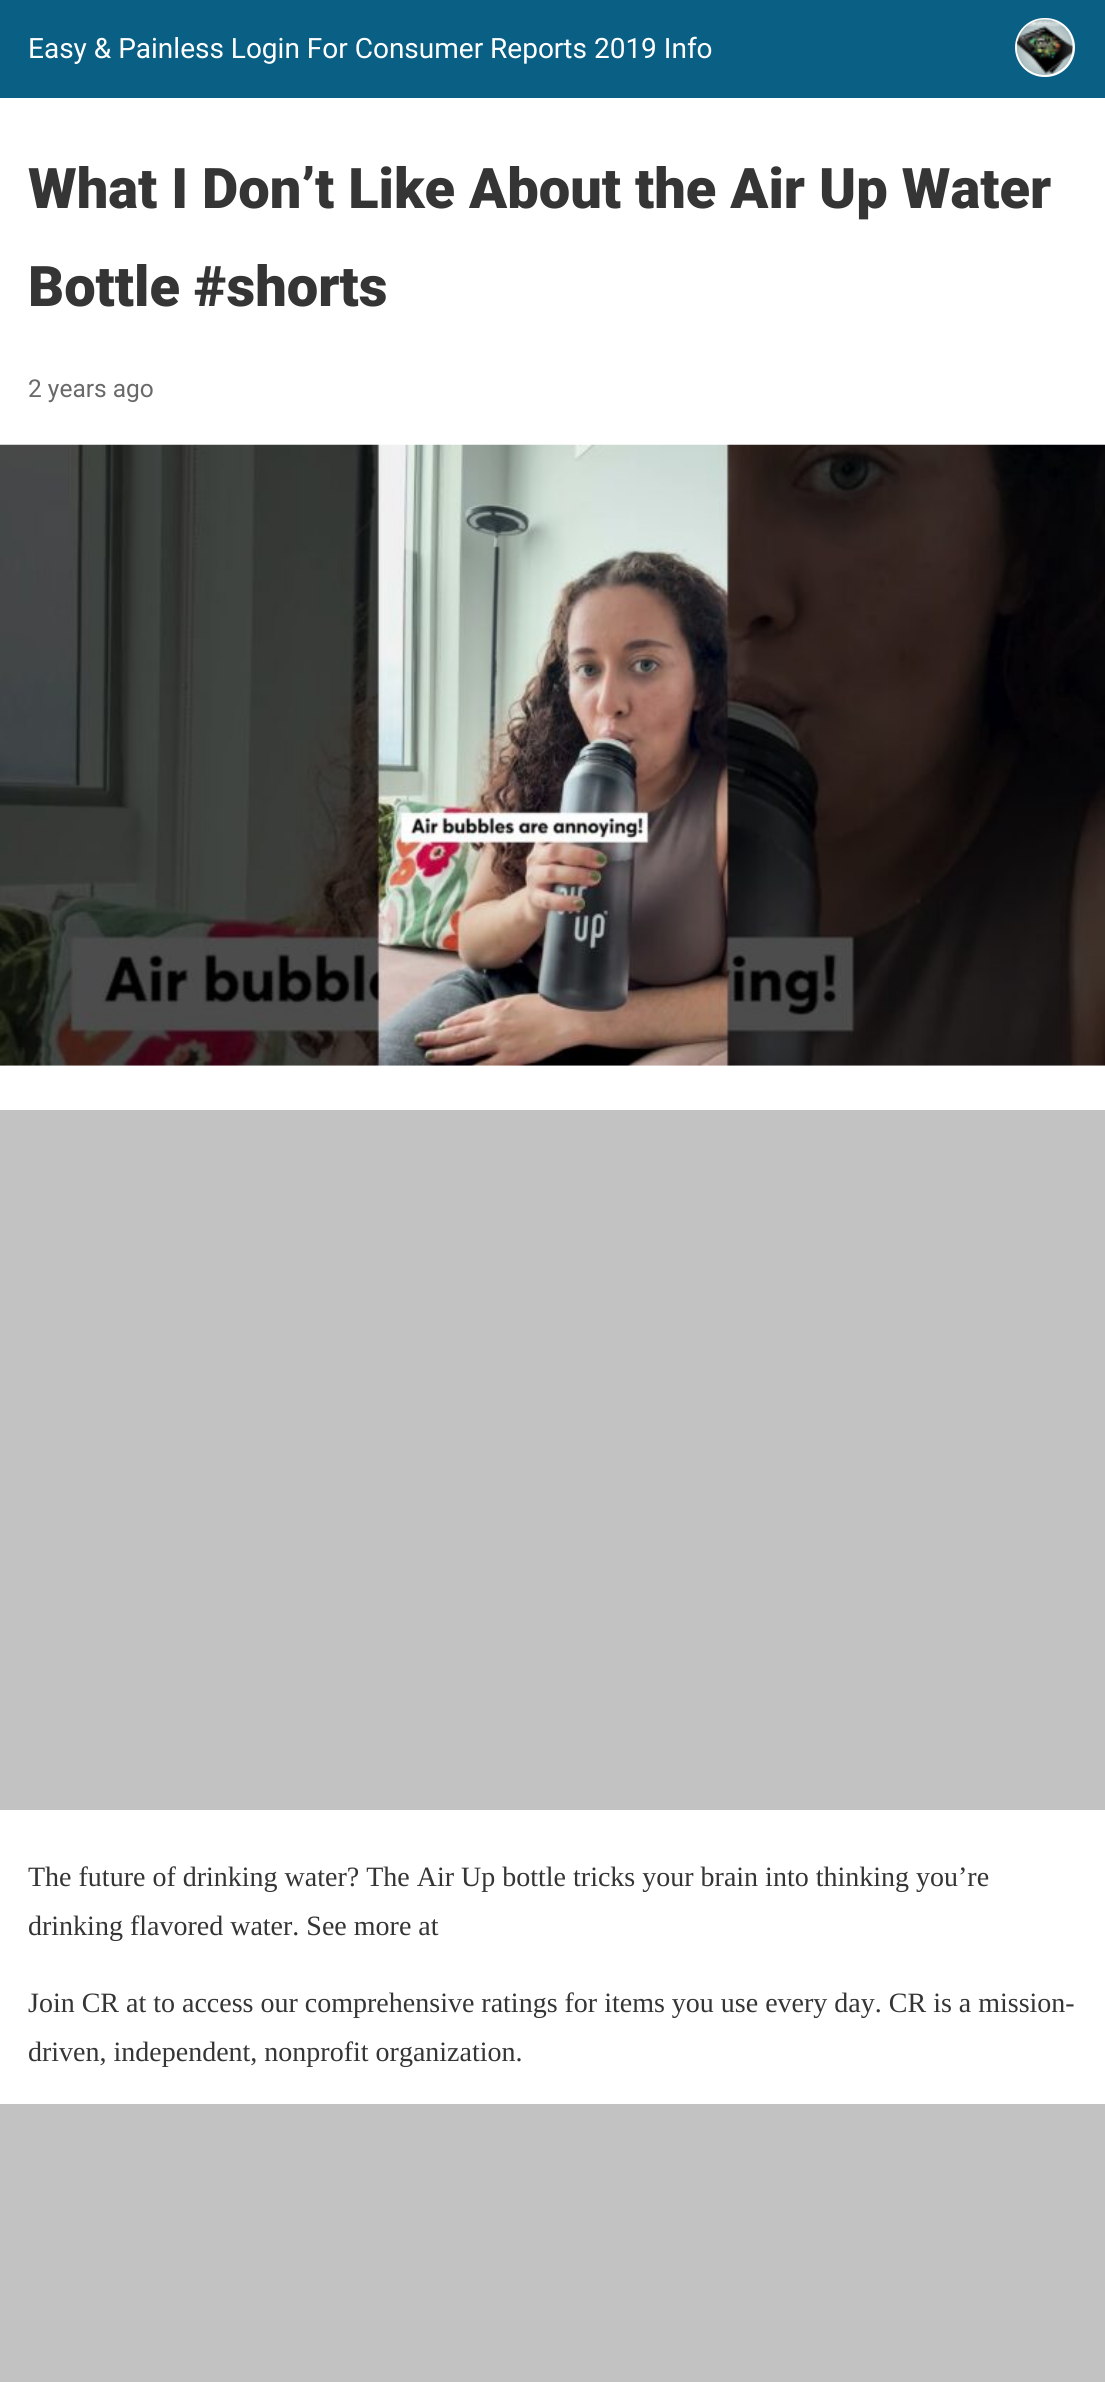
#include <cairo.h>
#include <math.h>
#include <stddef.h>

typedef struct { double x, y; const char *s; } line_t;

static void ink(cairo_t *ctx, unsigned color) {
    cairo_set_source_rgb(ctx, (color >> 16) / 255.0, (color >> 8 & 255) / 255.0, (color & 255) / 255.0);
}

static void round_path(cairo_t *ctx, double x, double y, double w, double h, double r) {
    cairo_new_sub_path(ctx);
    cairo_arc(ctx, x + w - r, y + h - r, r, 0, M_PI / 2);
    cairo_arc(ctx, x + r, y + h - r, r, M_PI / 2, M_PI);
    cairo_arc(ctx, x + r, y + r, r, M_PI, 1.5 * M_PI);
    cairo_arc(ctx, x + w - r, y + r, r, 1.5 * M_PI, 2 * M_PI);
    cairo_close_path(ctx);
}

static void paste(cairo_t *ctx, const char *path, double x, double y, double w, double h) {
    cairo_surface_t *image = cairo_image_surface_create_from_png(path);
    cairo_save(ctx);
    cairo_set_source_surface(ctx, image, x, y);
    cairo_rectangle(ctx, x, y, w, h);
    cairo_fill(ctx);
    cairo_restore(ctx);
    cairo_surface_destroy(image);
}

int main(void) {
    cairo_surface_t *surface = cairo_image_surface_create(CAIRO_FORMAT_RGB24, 1105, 2382);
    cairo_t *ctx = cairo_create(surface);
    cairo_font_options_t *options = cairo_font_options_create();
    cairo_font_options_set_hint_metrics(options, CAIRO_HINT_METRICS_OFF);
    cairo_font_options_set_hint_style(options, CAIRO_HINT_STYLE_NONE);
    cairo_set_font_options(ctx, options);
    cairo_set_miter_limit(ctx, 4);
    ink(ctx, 0xFFFFFF);
    cairo_paint(ctx);
    ink(ctx, 0x0A5F85);
    cairo_rectangle(ctx, 0, 0, 1105, 98);
    cairo_fill(ctx);
    cairo_select_font_face(ctx, "Roboto", CAIRO_FONT_SLANT_NORMAL, CAIRO_FONT_WEIGHT_NORMAL);
    cairo_set_font_size(ctx, 28);
    ink(ctx, 0xFFFFFF);
    cairo_move_to(ctx, 28, 58);
    cairo_show_text(ctx, "Easy & Painless Login For Consumer Reports 2019 Info");
    round_path(ctx, 1016, 19, 58, 57, 28.5);
    cairo_fill_preserve(ctx);
    cairo_stroke(ctx);
    paste(ctx, "media/1.png", 1016, 19, 57, 57);
    cairo_select_font_face(ctx, "Roboto Black", CAIRO_FONT_SLANT_NORMAL, CAIRO_FONT_WEIGHT_NORMAL);
    cairo_set_font_size(ctx, 56);
    ink(ctx, 0x353535);
    cairo_move_to(ctx, 28, 208);
    cairo_show_text(ctx, "What I Don’t Like About the Air Up Water");
    cairo_move_to(ctx, 28, 306);
    cairo_show_text(ctx, "Bottle #shorts");
    cairo_select_font_face(ctx, "Roboto", CAIRO_FONT_SLANT_NORMAL, CAIRO_FONT_WEIGHT_NORMAL);
    cairo_set_font_size(ctx, 24.5);
    ink(ctx, 0x696969);
    cairo_move_to(ctx, 28, 397);
    cairo_show_text(ctx, "2 years ago");
    paste(ctx, "media/2.png", 0, 444, 1105, 622);
    ink(ctx, 0xC2C2C2);
    cairo_rectangle(ctx, 0, 1110, 1105, 700);
    cairo_fill(ctx);
    cairo_select_font_face(ctx, "Liberation Serif", CAIRO_FONT_SLANT_NORMAL, CAIRO_FONT_WEIGHT_NORMAL);
    cairo_set_font_size(ctx, 28);
    ink(ctx, 0x353535);
    {
        static const line_t items[] = {
            {28, 1886, "The future of drinking water? The Air Up bottle tricks your brain into thinking you’re"},
            {28, 1935, "drinking flavored water. See more at"},
            {28, 2012, "Join CR at to access our comprehensive ratings for items you use every day. CR is a mission-"},
            {28, 2061, "driven, independent, nonprofit organization."},
        };
        for (size_t i = 0; i < sizeof items / sizeof *items; i++) {
            cairo_move_to(ctx, items[i].x, items[i].y);
            cairo_show_text(ctx, items[i].s);
        }
    }
    ink(ctx, 0xC2C2C2);
    cairo_rectangle(ctx, 0, 2104, 1105, 278);
    cairo_fill(ctx);
    cairo_surface_write_to_png(surface, "image.png");
    cairo_font_options_destroy(options);
    cairo_destroy(ctx);
    cairo_surface_destroy(surface);
    return 0;
}
